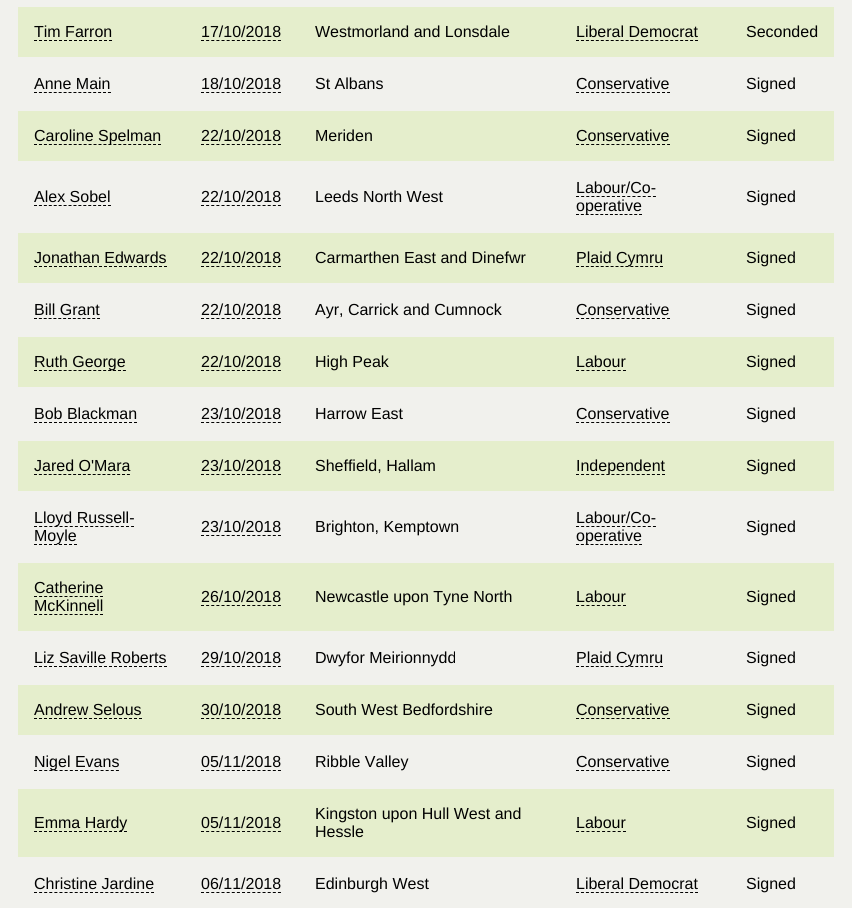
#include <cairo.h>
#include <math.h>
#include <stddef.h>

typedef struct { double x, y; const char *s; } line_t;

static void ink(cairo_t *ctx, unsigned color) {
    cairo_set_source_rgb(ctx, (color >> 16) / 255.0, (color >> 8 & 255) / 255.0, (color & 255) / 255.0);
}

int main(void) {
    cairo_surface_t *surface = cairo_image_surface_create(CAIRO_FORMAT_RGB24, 852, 908);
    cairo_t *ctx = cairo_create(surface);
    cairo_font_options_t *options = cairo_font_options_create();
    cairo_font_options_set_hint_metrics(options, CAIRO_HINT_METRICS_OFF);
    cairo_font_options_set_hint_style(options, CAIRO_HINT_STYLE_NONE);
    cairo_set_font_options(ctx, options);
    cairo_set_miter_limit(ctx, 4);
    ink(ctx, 0xF1F1ED);
    cairo_paint(ctx);
    ink(ctx, 0xE5EECC);
    cairo_rectangle(ctx, 18, 7, 816, 50);
    cairo_fill(ctx);
    cairo_select_font_face(ctx, "Liberation Sans", CAIRO_FONT_SLANT_NORMAL, CAIRO_FONT_WEIGHT_NORMAL);
    cairo_set_font_size(ctx, 16);
    ink(ctx, 0x000000);
    cairo_move_to(ctx, 34, 37);
    cairo_show_text(ctx, "Tim Farron");
    cairo_new_path(ctx);
    cairo_move_to(ctx, 34, 40.5);
    cairo_line_to(ctx, 112, 40.5);
    cairo_set_line_width(ctx, 1);
    cairo_set_dash(ctx, (double[]){3, 2}, 2, 0);
    cairo_stroke(ctx);
    cairo_move_to(ctx, 201, 37);
    cairo_show_text(ctx, "17/10/2018");
    cairo_new_path(ctx);
    cairo_move_to(ctx, 201, 40.5);
    cairo_line_to(ctx, 281, 40.5);
    cairo_set_dash(ctx, (double[]){3, 2.13}, 2, 0);
    cairo_stroke(ctx);
    cairo_move_to(ctx, 315, 37);
    cairo_show_text(ctx, "Westmorland and Lonsdale");
    cairo_move_to(ctx, 576, 37);
    cairo_show_text(ctx, "Liberal Democrat");
    cairo_new_path(ctx);
    cairo_move_to(ctx, 576, 40.5);
    cairo_line_to(ctx, 698, 40.5);
    cairo_set_dash(ctx, (double[]){3, 1.96}, 2, 0);
    cairo_stroke(ctx);
    cairo_move_to(ctx, 746, 37);
    cairo_show_text(ctx, "Seconded");
    cairo_move_to(ctx, 34, 89);
    cairo_show_text(ctx, "Anne Main");
    cairo_new_path(ctx);
    cairo_move_to(ctx, 34, 92.5);
    cairo_line_to(ctx, 111, 92.5);
    cairo_set_dash(ctx, (double[]){3, 1.93}, 2, 0);
    cairo_stroke(ctx);
    cairo_move_to(ctx, 201, 89);
    cairo_show_text(ctx, "18/10/2018");
    cairo_new_path(ctx);
    cairo_move_to(ctx, 201, 92.5);
    cairo_line_to(ctx, 281, 92.5);
    cairo_set_dash(ctx, (double[]){3, 2.13}, 2, 0);
    cairo_stroke(ctx);
    cairo_move_to(ctx, 315, 89);
    cairo_show_text(ctx, "St Albans");
    cairo_move_to(ctx, 576, 89);
    cairo_show_text(ctx, "Conservative");
    cairo_new_path(ctx);
    cairo_move_to(ctx, 576, 92.5);
    cairo_line_to(ctx, 670, 92.5);
    cairo_set_dash(ctx, (double[]){3, 2.06}, 2, 0);
    cairo_stroke(ctx);
    cairo_move_to(ctx, 746, 89);
    cairo_show_text(ctx, "Signed");
    ink(ctx, 0xE5EECC);
    cairo_rectangle(ctx, 18, 111, 816, 50);
    cairo_fill(ctx);
    cairo_new_path(ctx);
    cairo_move_to(ctx, 34, 144.5);
    cairo_line_to(ctx, 161, 144.5);
    ink(ctx, 0x000000);
    cairo_set_dash(ctx, (double[]){3, 1.96}, 2, 0);
    cairo_stroke(ctx);
    cairo_move_to(ctx, 34, 141);
    cairo_show_text(ctx, "Caroline Spelman");
    cairo_move_to(ctx, 201, 141);
    cairo_show_text(ctx, "22/10/2018");
    cairo_new_path(ctx);
    cairo_move_to(ctx, 201, 144.5);
    cairo_line_to(ctx, 281, 144.5);
    cairo_set_dash(ctx, (double[]){3, 2.13}, 2, 0);
    cairo_stroke(ctx);
    cairo_move_to(ctx, 315, 141);
    cairo_show_text(ctx, "Meriden");
    cairo_move_to(ctx, 576, 141);
    cairo_show_text(ctx, "Conservative");
    cairo_new_path(ctx);
    cairo_move_to(ctx, 576, 144.5);
    cairo_line_to(ctx, 670, 144.5);
    cairo_set_dash(ctx, (double[]){3, 2.06}, 2, 0);
    cairo_stroke(ctx);
    cairo_move_to(ctx, 746, 141);
    cairo_show_text(ctx, "Signed");
    cairo_move_to(ctx, 34, 202);
    cairo_show_text(ctx, "Alex Sobel");
    cairo_new_path(ctx);
    cairo_move_to(ctx, 34, 205.5);
    cairo_line_to(ctx, 111, 205.5);
    cairo_set_dash(ctx, (double[]){3, 1.93}, 2, 0);
    cairo_stroke(ctx);
    cairo_move_to(ctx, 201, 202);
    cairo_show_text(ctx, "22/10/2018");
    cairo_new_path(ctx);
    cairo_move_to(ctx, 201, 205.5);
    cairo_line_to(ctx, 281, 205.5);
    cairo_set_dash(ctx, (double[]){3, 2.13}, 2, 0);
    cairo_stroke(ctx);
    cairo_move_to(ctx, 315, 202);
    cairo_show_text(ctx, "Leeds North West");
    cairo_move_to(ctx, 576, 193);
    cairo_show_text(ctx, "Labour/Co-");
    cairo_new_path(ctx);
    cairo_move_to(ctx, 576, 196.5);
    cairo_line_to(ctx, 656, 196.5);
    cairo_stroke(ctx);
    cairo_new_path(ctx);
    cairo_move_to(ctx, 576, 214.5);
    cairo_line_to(ctx, 642, 214.5);
    cairo_set_dash(ctx, (double[]){3, 1.85}, 2, 0);
    cairo_stroke(ctx);
    cairo_move_to(ctx, 576, 211);
    cairo_show_text(ctx, "operative");
    cairo_move_to(ctx, 746, 202);
    cairo_show_text(ctx, "Signed");
    ink(ctx, 0xE5EECC);
    cairo_rectangle(ctx, 18, 233, 816, 50);
    cairo_fill(ctx);
    ink(ctx, 0x000000);
    cairo_move_to(ctx, 34, 263);
    cairo_show_text(ctx, "Jonathan Edwards");
    cairo_new_path(ctx);
    cairo_move_to(ctx, 34, 266.5);
    cairo_line_to(ctx, 167, 266.5);
    cairo_set_dash(ctx, (double[]){3, 2}, 2, 0);
    cairo_stroke(ctx);
    cairo_move_to(ctx, 201, 263);
    cairo_show_text(ctx, "22/10/2018");
    cairo_new_path(ctx);
    cairo_move_to(ctx, 201, 266.5);
    cairo_line_to(ctx, 281, 266.5);
    cairo_set_dash(ctx, (double[]){3, 2.13}, 2, 0);
    cairo_stroke(ctx);
    cairo_move_to(ctx, 315, 263);
    cairo_show_text(ctx, "Carmarthen East and Dinefwr");
    cairo_new_path(ctx);
    cairo_move_to(ctx, 576, 266.5);
    cairo_line_to(ctx, 663, 266.5);
    cairo_set_dash(ctx, (double[]){3, 1.94}, 2, 0);
    cairo_stroke(ctx);
    {
        static const line_t items[] = {
            {576, 263, "Plaid Cymru"},
            {746, 263, "Signed"},
            {34, 315, "Bill Grant"},
        };
        for (size_t i = 0; i < sizeof items / sizeof *items; i++) {
            cairo_move_to(ctx, items[i].x, items[i].y);
            cairo_show_text(ctx, items[i].s);
        }
    }
    cairo_new_path(ctx);
    cairo_move_to(ctx, 34, 318.5);
    cairo_line_to(ctx, 100, 318.5);
    cairo_set_dash(ctx, (double[]){3, 1.85}, 2, 0);
    cairo_stroke(ctx);
    cairo_move_to(ctx, 201, 315);
    cairo_show_text(ctx, "22/10/2018");
    cairo_new_path(ctx);
    cairo_move_to(ctx, 201, 318.5);
    cairo_line_to(ctx, 281, 318.5);
    cairo_set_dash(ctx, (double[]){3, 2.13}, 2, 0);
    cairo_stroke(ctx);
    cairo_move_to(ctx, 315, 315);
    cairo_show_text(ctx, "Ayr, Carrick and Cumnock");
    cairo_move_to(ctx, 576, 315);
    cairo_show_text(ctx, "Conservative");
    cairo_new_path(ctx);
    cairo_move_to(ctx, 576, 318.5);
    cairo_line_to(ctx, 670, 318.5);
    cairo_set_dash(ctx, (double[]){3, 2.06}, 2, 0);
    cairo_stroke(ctx);
    cairo_move_to(ctx, 746, 315);
    cairo_show_text(ctx, "Signed");
    ink(ctx, 0xE5EECC);
    cairo_rectangle(ctx, 18, 337, 816, 50);
    cairo_fill(ctx);
    cairo_new_path(ctx);
    cairo_move_to(ctx, 34, 370.5);
    cairo_line_to(ctx, 126, 370.5);
    ink(ctx, 0x000000);
    cairo_set_dash(ctx, (double[]){3, 1.94}, 2, 0);
    cairo_stroke(ctx);
    cairo_move_to(ctx, 34, 367);
    cairo_show_text(ctx, "Ruth George");
    cairo_move_to(ctx, 201, 367);
    cairo_show_text(ctx, "22/10/2018");
    cairo_new_path(ctx);
    cairo_move_to(ctx, 201, 370.5);
    cairo_line_to(ctx, 281, 370.5);
    cairo_set_dash(ctx, (double[]){3, 2.13}, 2, 0);
    cairo_stroke(ctx);
    cairo_move_to(ctx, 315, 367);
    cairo_show_text(ctx, "High Peak");
    cairo_move_to(ctx, 576, 367);
    cairo_show_text(ctx, "Labour");
    cairo_new_path(ctx);
    cairo_move_to(ctx, 576, 370.5);
    cairo_line_to(ctx, 626, 370.5);
    cairo_set_dash(ctx, (double[]){3, 2.22}, 2, 0);
    cairo_stroke(ctx);
    cairo_move_to(ctx, 746, 367);
    cairo_show_text(ctx, "Signed");
    cairo_move_to(ctx, 34, 419);
    cairo_show_text(ctx, "Bob Blackman");
    cairo_new_path(ctx);
    cairo_move_to(ctx, 34, 422.5);
    cairo_line_to(ctx, 137, 422.5);
    cairo_set_dash(ctx, (double[]){3, 2}, 2, 0);
    cairo_stroke(ctx);
    cairo_move_to(ctx, 201, 419);
    cairo_show_text(ctx, "23/10/2018");
    cairo_new_path(ctx);
    cairo_move_to(ctx, 201, 422.5);
    cairo_line_to(ctx, 281, 422.5);
    cairo_set_dash(ctx, (double[]){3, 2.13}, 2, 0);
    cairo_stroke(ctx);
    cairo_move_to(ctx, 315, 419);
    cairo_show_text(ctx, "Harrow East");
    cairo_move_to(ctx, 576, 419);
    cairo_show_text(ctx, "Conservative");
    cairo_new_path(ctx);
    cairo_move_to(ctx, 576, 422.5);
    cairo_line_to(ctx, 670, 422.5);
    cairo_set_dash(ctx, (double[]){3, 2.06}, 2, 0);
    cairo_stroke(ctx);
    cairo_move_to(ctx, 746, 419);
    cairo_show_text(ctx, "Signed");
    ink(ctx, 0xE5EECC);
    cairo_rectangle(ctx, 18, 441, 816, 50);
    cairo_fill(ctx);
    ink(ctx, 0x000000);
    cairo_move_to(ctx, 34, 471);
    cairo_show_text(ctx, "Jared O'Mara");
    cairo_new_path(ctx);
    cairo_move_to(ctx, 34, 474.5);
    cairo_line_to(ctx, 130, 474.5);
    cairo_set_dash(ctx, (double[]){3, 1.89}, 2, 0);
    cairo_stroke(ctx);
    cairo_move_to(ctx, 201, 471);
    cairo_show_text(ctx, "23/10/2018");
    cairo_new_path(ctx);
    cairo_move_to(ctx, 201, 474.5);
    cairo_line_to(ctx, 281, 474.5);
    cairo_set_dash(ctx, (double[]){3, 2.13}, 2, 0);
    cairo_stroke(ctx);
    cairo_move_to(ctx, 315, 471);
    cairo_show_text(ctx, "Sheffield, Hallam");
    cairo_new_path(ctx);
    cairo_move_to(ctx, 576, 474.5);
    cairo_line_to(ctx, 665, 474.5);
    cairo_set_dash(ctx, (double[]){3, 2.06}, 2, 0);
    cairo_stroke(ctx);
    cairo_move_to(ctx, 576, 471);
    cairo_show_text(ctx, "Independent");
    cairo_move_to(ctx, 746, 471);
    cairo_show_text(ctx, "Signed");
    cairo_new_path(ctx);
    cairo_move_to(ctx, 34, 526.5);
    cairo_line_to(ctx, 134, 526.5);
    cairo_set_dash(ctx, (double[]){3, 2.11}, 2, 0);
    cairo_stroke(ctx);
    cairo_move_to(ctx, 34, 523);
    cairo_show_text(ctx, "Lloyd Russell-");
    cairo_new_path(ctx);
    cairo_move_to(ctx, 34, 544.5);
    cairo_line_to(ctx, 77, 544.5);
    cairo_set_dash(ctx, (double[]){3, 2}, 2, 0);
    cairo_stroke(ctx);
    cairo_move_to(ctx, 34, 541);
    cairo_show_text(ctx, "Moyle");
    cairo_move_to(ctx, 201, 532);
    cairo_show_text(ctx, "23/10/2018");
    cairo_new_path(ctx);
    cairo_move_to(ctx, 201, 535.5);
    cairo_line_to(ctx, 281, 535.5);
    cairo_set_dash(ctx, (double[]){3, 2.13}, 2, 0);
    cairo_stroke(ctx);
    cairo_move_to(ctx, 315, 532);
    cairo_show_text(ctx, "Brighton, Kemptown");
    cairo_move_to(ctx, 576, 523);
    cairo_show_text(ctx, "Labour/Co-");
    cairo_new_path(ctx);
    cairo_move_to(ctx, 576, 526.5);
    cairo_line_to(ctx, 656, 526.5);
    cairo_stroke(ctx);
    cairo_new_path(ctx);
    cairo_move_to(ctx, 576, 544.5);
    cairo_line_to(ctx, 642, 544.5);
    cairo_set_dash(ctx, (double[]){3, 1.85}, 2, 0);
    cairo_stroke(ctx);
    cairo_move_to(ctx, 576, 541);
    cairo_show_text(ctx, "operative");
    cairo_move_to(ctx, 746, 532);
    cairo_show_text(ctx, "Signed");
    ink(ctx, 0xE5EECC);
    cairo_rectangle(ctx, 18, 563, 816, 68);
    cairo_fill(ctx);
    ink(ctx, 0x000000);
    cairo_move_to(ctx, 34, 593);
    cairo_show_text(ctx, "Catherine");
    cairo_new_path(ctx);
    cairo_move_to(ctx, 34, 596.5);
    cairo_line_to(ctx, 103, 596.5);
    cairo_set_dash(ctx, (double[]){3, 2.08}, 2, 0);
    cairo_stroke(ctx);
    cairo_move_to(ctx, 34, 611);
    cairo_show_text(ctx, "McKinnell");
    cairo_new_path(ctx);
    cairo_move_to(ctx, 34, 614.5);
    cairo_line_to(ctx, 103, 614.5);
    cairo_stroke(ctx);
    cairo_move_to(ctx, 201, 602);
    cairo_show_text(ctx, "26/10/2018");
    cairo_new_path(ctx);
    cairo_move_to(ctx, 201, 605.5);
    cairo_line_to(ctx, 281, 605.5);
    cairo_set_dash(ctx, (double[]){3, 2.13}, 2, 0);
    cairo_stroke(ctx);
    cairo_move_to(ctx, 315, 602);
    cairo_show_text(ctx, "Newcastle upon Tyne North");
    cairo_move_to(ctx, 576, 602);
    cairo_show_text(ctx, "Labour");
    cairo_new_path(ctx);
    cairo_move_to(ctx, 576, 605.5);
    cairo_line_to(ctx, 626, 605.5);
    cairo_set_dash(ctx, (double[]){3, 2.22}, 2, 0);
    cairo_stroke(ctx);
    cairo_move_to(ctx, 746, 602);
    cairo_show_text(ctx, "Signed");
    cairo_move_to(ctx, 34, 663);
    cairo_show_text(ctx, "Liz Saville Roberts");
    cairo_new_path(ctx);
    cairo_move_to(ctx, 34, 666.5);
    cairo_line_to(ctx, 167, 666.5);
    cairo_set_dash(ctx, (double[]){3, 2}, 2, 0);
    cairo_stroke(ctx);
    cairo_move_to(ctx, 201, 663);
    cairo_show_text(ctx, "29/10/2018");
    cairo_new_path(ctx);
    cairo_move_to(ctx, 201, 666.5);
    cairo_line_to(ctx, 281, 666.5);
    cairo_set_dash(ctx, (double[]){3, 2.13}, 2, 0);
    cairo_stroke(ctx);
    cairo_move_to(ctx, 315, 663);
    cairo_show_text(ctx, "Dwyfor Meirionnydd");
    cairo_new_path(ctx);
    cairo_move_to(ctx, 576, 666.5);
    cairo_line_to(ctx, 663, 666.5);
    cairo_set_dash(ctx, (double[]){3, 1.94}, 2, 0);
    cairo_stroke(ctx);
    cairo_move_to(ctx, 576, 663);
    cairo_show_text(ctx, "Plaid Cymru");
    cairo_move_to(ctx, 746, 663);
    cairo_show_text(ctx, "Signed");
    ink(ctx, 0xE5EECC);
    cairo_rectangle(ctx, 18, 685, 816, 50);
    cairo_fill(ctx);
    ink(ctx, 0x000000);
    cairo_move_to(ctx, 34, 715);
    cairo_show_text(ctx, "Andrew Selous");
    cairo_new_path(ctx);
    cairo_move_to(ctx, 34, 718.5);
    cairo_line_to(ctx, 142, 718.5);
    cairo_set_dash(ctx, (double[]){3, 2}, 2, 0);
    cairo_stroke(ctx);
    cairo_move_to(ctx, 201, 715);
    cairo_show_text(ctx, "30/10/2018");
    cairo_new_path(ctx);
    cairo_move_to(ctx, 201, 718.5);
    cairo_line_to(ctx, 281, 718.5);
    cairo_set_dash(ctx, (double[]){3, 2.13}, 2, 0);
    cairo_stroke(ctx);
    cairo_move_to(ctx, 315, 715);
    cairo_show_text(ctx, "South West Bedfordshire");
    cairo_move_to(ctx, 576, 715);
    cairo_show_text(ctx, "Conservative");
    cairo_new_path(ctx);
    cairo_move_to(ctx, 576, 718.5);
    cairo_line_to(ctx, 670, 718.5);
    cairo_set_dash(ctx, (double[]){3, 2.06}, 2, 0);
    cairo_stroke(ctx);
    cairo_move_to(ctx, 746, 715);
    cairo_show_text(ctx, "Signed");
    cairo_new_path(ctx);
    cairo_move_to(ctx, 34, 770.5);
    cairo_line_to(ctx, 119, 770.5);
    cairo_set_dash(ctx, (double[]){3, 2.12}, 2, 0);
    cairo_stroke(ctx);
    cairo_move_to(ctx, 34, 767);
    cairo_show_text(ctx, "Nigel Evans");
    cairo_move_to(ctx, 201, 767);
    cairo_show_text(ctx, "05/11/2018");
    cairo_new_path(ctx);
    cairo_move_to(ctx, 201, 770.5);
    cairo_line_to(ctx, 281, 770.5);
    cairo_set_dash(ctx, (double[]){3, 2.13}, 2, 0);
    cairo_stroke(ctx);
    cairo_move_to(ctx, 315, 767);
    cairo_show_text(ctx, "Ribble Valley");
    cairo_move_to(ctx, 576, 767);
    cairo_show_text(ctx, "Conservative");
    cairo_new_path(ctx);
    cairo_move_to(ctx, 576, 770.5);
    cairo_line_to(ctx, 670, 770.5);
    cairo_set_dash(ctx, (double[]){3, 2.06}, 2, 0);
    cairo_stroke(ctx);
    cairo_move_to(ctx, 746, 767);
    cairo_show_text(ctx, "Signed");
    ink(ctx, 0xE5EECC);
    cairo_rectangle(ctx, 18, 789, 816, 68);
    cairo_fill(ctx);
    cairo_new_path(ctx);
    cairo_move_to(ctx, 34, 831.5);
    cairo_line_to(ctx, 127, 831.5);
    ink(ctx, 0x000000);
    cairo_set_dash(ctx, (double[]){3, 2}, 2, 0);
    cairo_stroke(ctx);
    cairo_move_to(ctx, 34, 828);
    cairo_show_text(ctx, "Emma Hardy");
    cairo_move_to(ctx, 201, 828);
    cairo_show_text(ctx, "05/11/2018");
    cairo_new_path(ctx);
    cairo_move_to(ctx, 201, 831.5);
    cairo_line_to(ctx, 281, 831.5);
    cairo_set_dash(ctx, (double[]){3, 2.13}, 2, 0);
    cairo_stroke(ctx);
    {
        static const line_t items[] = {
            {315, 819, "Kingston upon Hull West and"},
            {315, 837, "Hessle"},
            {576, 828, "Labour"},
        };
        for (size_t i = 0; i < sizeof items / sizeof *items; i++) {
            cairo_move_to(ctx, items[i].x, items[i].y);
            cairo_show_text(ctx, items[i].s);
        }
    }
    cairo_new_path(ctx);
    cairo_move_to(ctx, 576, 831.5);
    cairo_line_to(ctx, 626, 831.5);
    cairo_set_dash(ctx, (double[]){3, 2.22}, 2, 0);
    cairo_stroke(ctx);
    cairo_move_to(ctx, 746, 828);
    cairo_show_text(ctx, "Signed");
    cairo_move_to(ctx, 34, 889);
    cairo_show_text(ctx, "Christine Jardine");
    cairo_new_path(ctx);
    cairo_move_to(ctx, 34, 892.5);
    cairo_line_to(ctx, 154, 892.5);
    cairo_set_dash(ctx, (double[]){3, 2.09}, 2, 0);
    cairo_stroke(ctx);
    cairo_move_to(ctx, 201, 889);
    cairo_show_text(ctx, "06/11/2018");
    cairo_new_path(ctx);
    cairo_move_to(ctx, 201, 892.5);
    cairo_line_to(ctx, 281, 892.5);
    cairo_set_dash(ctx, (double[]){3, 2.13}, 2, 0);
    cairo_stroke(ctx);
    cairo_move_to(ctx, 315, 889);
    cairo_show_text(ctx, "Edinburgh West");
    cairo_move_to(ctx, 576, 889);
    cairo_show_text(ctx, "Liberal Democrat");
    cairo_new_path(ctx);
    cairo_move_to(ctx, 576, 892.5);
    cairo_line_to(ctx, 698, 892.5);
    cairo_set_dash(ctx, (double[]){3, 1.96}, 2, 0);
    cairo_stroke(ctx);
    cairo_move_to(ctx, 746, 889);
    cairo_show_text(ctx, "Signed");
    cairo_surface_write_to_png(surface, "image.png");
    cairo_font_options_destroy(options);
    cairo_destroy(ctx);
    cairo_surface_destroy(surface);
    return 0;
}
